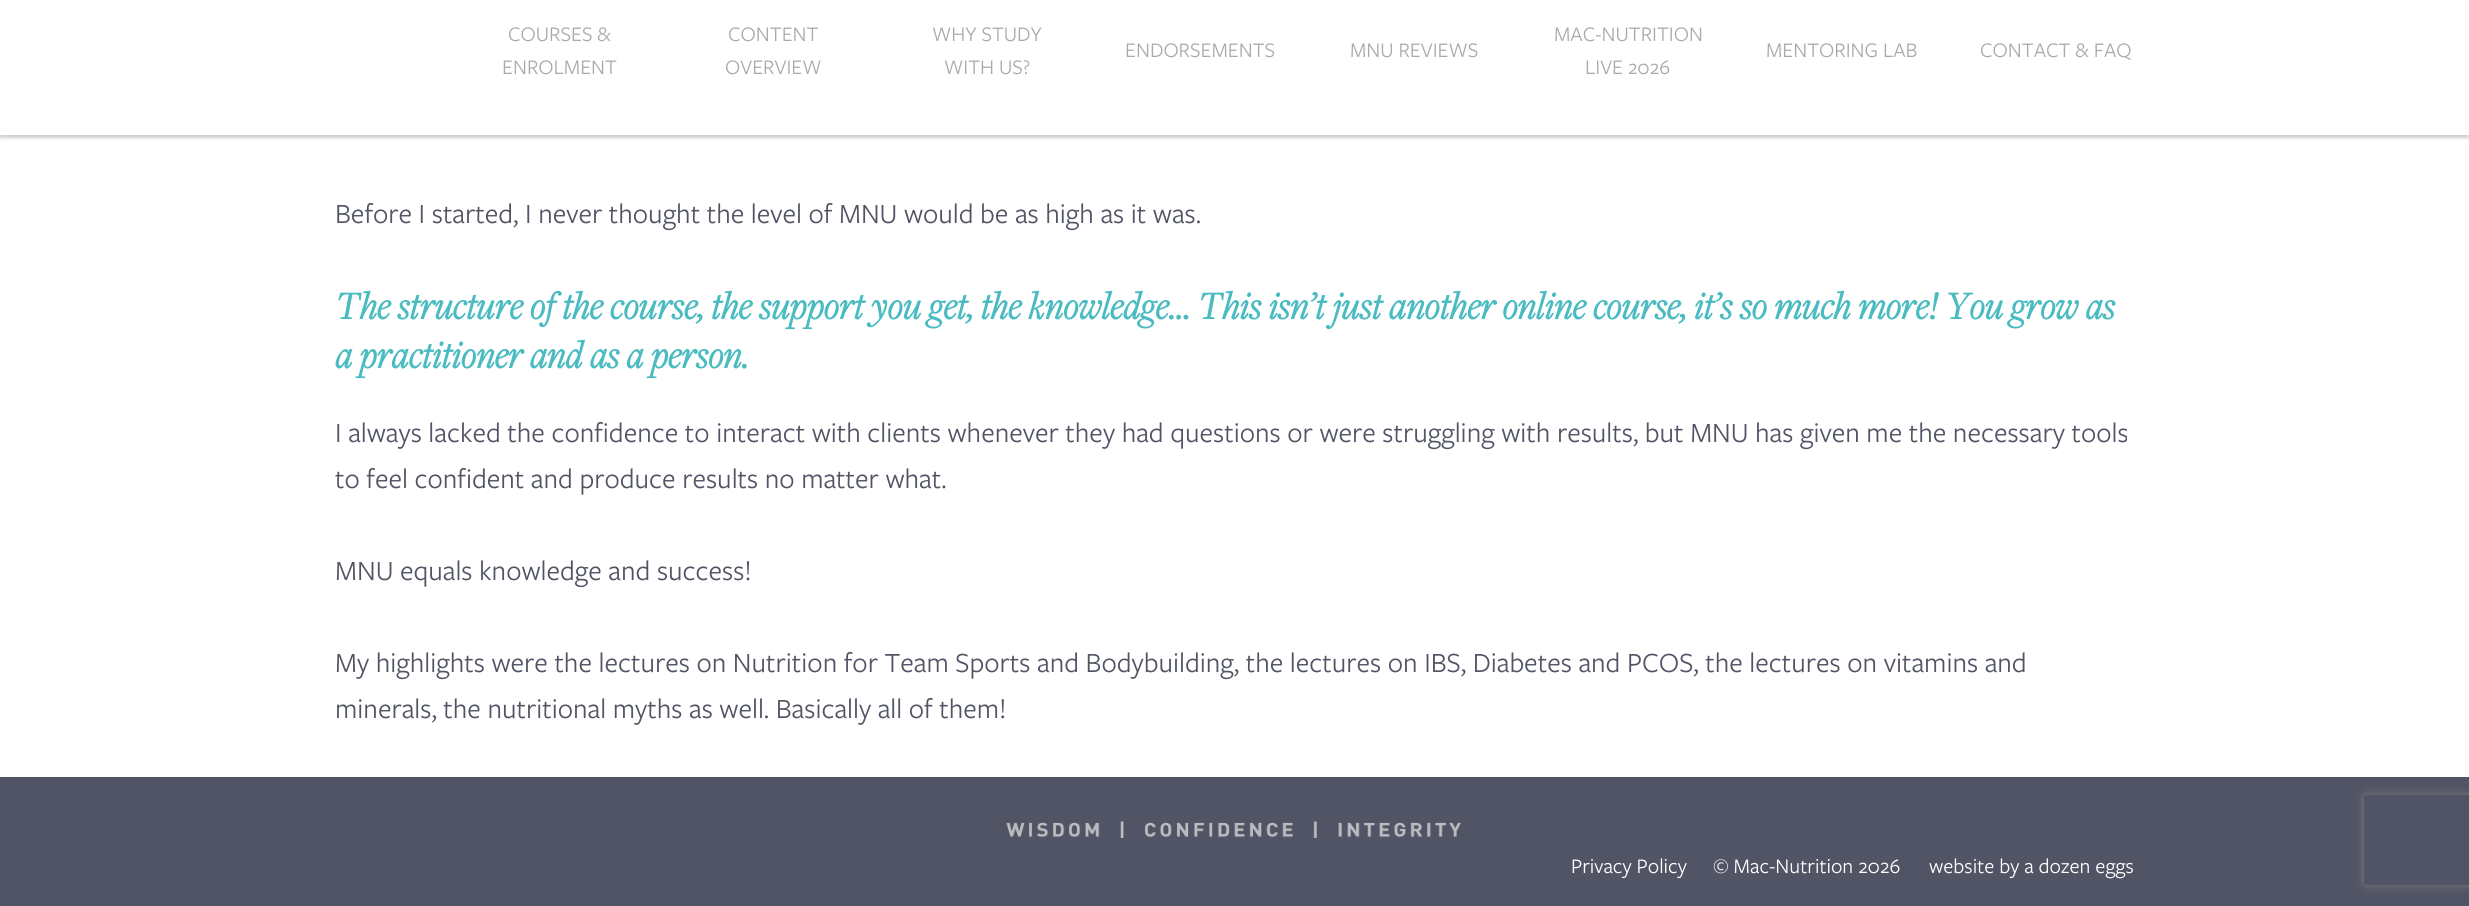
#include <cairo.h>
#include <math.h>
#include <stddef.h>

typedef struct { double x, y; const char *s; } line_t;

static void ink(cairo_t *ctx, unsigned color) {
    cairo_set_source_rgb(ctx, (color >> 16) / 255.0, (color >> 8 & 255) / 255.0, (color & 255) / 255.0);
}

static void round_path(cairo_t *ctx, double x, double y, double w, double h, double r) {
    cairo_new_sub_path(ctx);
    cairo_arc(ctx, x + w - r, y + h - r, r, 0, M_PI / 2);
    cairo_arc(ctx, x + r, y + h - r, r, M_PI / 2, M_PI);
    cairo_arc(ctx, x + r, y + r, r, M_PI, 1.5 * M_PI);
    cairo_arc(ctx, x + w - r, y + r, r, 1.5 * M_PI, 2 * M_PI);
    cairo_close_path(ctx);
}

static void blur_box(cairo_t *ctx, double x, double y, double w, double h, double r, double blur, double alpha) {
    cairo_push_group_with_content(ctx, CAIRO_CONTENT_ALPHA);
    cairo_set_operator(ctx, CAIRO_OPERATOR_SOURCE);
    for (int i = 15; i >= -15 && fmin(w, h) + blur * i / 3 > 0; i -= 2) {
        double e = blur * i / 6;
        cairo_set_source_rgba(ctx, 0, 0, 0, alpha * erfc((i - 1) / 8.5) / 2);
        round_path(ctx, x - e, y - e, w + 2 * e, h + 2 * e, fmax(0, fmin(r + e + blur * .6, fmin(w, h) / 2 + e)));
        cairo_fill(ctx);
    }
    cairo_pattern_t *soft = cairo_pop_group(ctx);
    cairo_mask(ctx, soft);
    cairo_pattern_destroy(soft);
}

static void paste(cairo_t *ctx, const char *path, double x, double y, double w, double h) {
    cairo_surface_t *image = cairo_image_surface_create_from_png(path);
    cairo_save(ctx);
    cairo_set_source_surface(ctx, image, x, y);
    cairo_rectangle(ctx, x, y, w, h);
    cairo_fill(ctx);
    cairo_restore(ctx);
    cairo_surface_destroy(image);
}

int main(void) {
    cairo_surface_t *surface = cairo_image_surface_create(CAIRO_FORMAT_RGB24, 2469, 906);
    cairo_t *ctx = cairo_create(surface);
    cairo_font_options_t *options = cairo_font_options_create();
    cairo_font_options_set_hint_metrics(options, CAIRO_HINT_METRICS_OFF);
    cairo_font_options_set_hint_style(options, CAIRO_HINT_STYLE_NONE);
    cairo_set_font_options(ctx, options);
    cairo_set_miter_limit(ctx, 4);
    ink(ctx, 0xFFFFFF);
    cairo_paint(ctx);
    ink(ctx, 0x5C5F6F);
    blur_box(ctx, 0, 3, 2469, 135, 0, 1.5, 0.3);
    ink(ctx, 0xFFFFFF);
    cairo_rectangle(ctx, 0, 1, 2469, 134);
    cairo_fill(ctx);
    cairo_select_font_face(ctx, "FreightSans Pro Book", CAIRO_FONT_SLANT_NORMAL, CAIRO_FONT_WEIGHT_NORMAL);
    cairo_set_font_size(ctx, 21.5);
    ink(ctx, 0xA7A9AC);
    {
        static const line_t items[] = {
            {508, 41, "COURSES &"},
            {502, 74, "ENROLMENT"},
            {728, 41, "CONTENT"},
            {725, 74, "OVERVIEW"},
            {932, 41, "WHY STUDY"},
            {944, 74, "WITH US?"},
            {1125, 57, "ENDORSEMENTS"},
            {1350, 57, "MNU REVIEWS"},
            {1554, 41, "MAC-NUTRITION"},
            {1585, 74, "LIVE 2026"},
            {1766, 57, "MENTORING LAB"},
            {1980, 57, "CONTACT & FAQ"},
        };
        for (size_t i = 0; i < sizeof items / sizeof *items; i++) {
            cairo_move_to(ctx, items[i].x, items[i].y);
            cairo_show_text(ctx, items[i].s);
        }
    }
    cairo_set_font_size(ctx, 28.8);
    ink(ctx, 0x515464);
    cairo_move_to(ctx, 335, 223);
    cairo_show_text(ctx, "Before I started, I never thought the level of MNU would be as high as it was.");
    cairo_select_font_face(ctx, "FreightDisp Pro", CAIRO_FONT_SLANT_ITALIC, CAIRO_FONT_WEIGHT_BOLD);
    cairo_set_font_size(ctx, 40.3);
    ink(ctx, 0x4ABBC1);
    cairo_move_to(ctx, 335, 319);
    cairo_show_text(ctx, "The structure of the course, the support you get, the knowledge… This isn’t just another online course, it’s so much more! You grow as");
    cairo_move_to(ctx, 335, 368);
    cairo_show_text(ctx, "a practitioner and as a person.");
    cairo_select_font_face(ctx, "FreightSans Pro Book", CAIRO_FONT_SLANT_NORMAL, CAIRO_FONT_WEIGHT_NORMAL);
    cairo_set_font_size(ctx, 28.8);
    ink(ctx, 0x515464);
    {
        static const line_t items[] = {
            {335, 442, "I always lacked the confidence to interact with clients whenever they had questions or were struggling with results, but MNU has given me the necessary tools"},
            {335, 488, "to feel confident and produce results no matter what."},
            {335, 580, "MNU equals knowledge and success!"},
            {335, 672, "My highlights were the lectures on Nutrition for Team Sports and Bodybuilding, the lectures on IBS, Diabetes and PCOS, the lectures on vitamins and"},
            {335, 718, "minerals, the nutritional myths as well. Basically all of them!"},
        };
        for (size_t i = 0; i < sizeof items / sizeof *items; i++) {
            cairo_move_to(ctx, items[i].x, items[i].y);
            cairo_show_text(ctx, items[i].s);
        }
    }
    cairo_rectangle(ctx, 0, 777, 2469, 129);
    cairo_fill(ctx);
    paste(ctx, "media/1.png", 1006, 821, 455, 17);
    cairo_set_font_size(ctx, 21.5);
    ink(ctx, 0xFFFFFF);
    {
        static const line_t items[] = {
            {1571, 873, "Privacy Policy"},
            {1713, 873, "© Mac-Nutrition 2026"},
            {1929, 873, "website by a dozen eggs"},
        };
        for (size_t i = 0; i < sizeof items / sizeof *items; i++) {
            cairo_move_to(ctx, items[i].x, items[i].y);
            cairo_show_text(ctx, items[i].s);
        }
    }
    cairo_save(ctx);
    cairo_set_fill_rule(ctx, CAIRO_FILL_RULE_EVEN_ODD);
    cairo_new_path(ctx);
    cairo_move_to(ctx, 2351, 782);
    cairo_line_to(ctx, 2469, 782);
    cairo_line_to(ctx, 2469, 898);
    cairo_line_to(ctx, 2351, 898);
    cairo_close_path(ctx);
    cairo_move_to(ctx, 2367, 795);
    cairo_line_to(ctx, 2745, 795);
    cairo_curve_to(ctx, 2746.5, 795, 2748, 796.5, 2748, 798);
    cairo_line_to(ctx, 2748, 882);
    cairo_curve_to(ctx, 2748, 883.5, 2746.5, 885, 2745, 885);
    cairo_line_to(ctx, 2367, 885);
    cairo_curve_to(ctx, 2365.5, 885, 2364, 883.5, 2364, 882);
    cairo_line_to(ctx, 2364, 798);
    cairo_curve_to(ctx, 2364, 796.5, 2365.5, 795, 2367, 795);
    cairo_close_path(ctx);
    cairo_clip(ctx);
    ink(ctx, 0x808080);
    blur_box(ctx, 2364, 795, 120, 90, 3, 4, 1);
    cairo_restore(ctx);
    cairo_surface_write_to_png(surface, "image.png");
    cairo_font_options_destroy(options);
    cairo_destroy(ctx);
    cairo_surface_destroy(surface);
    return 0;
}
